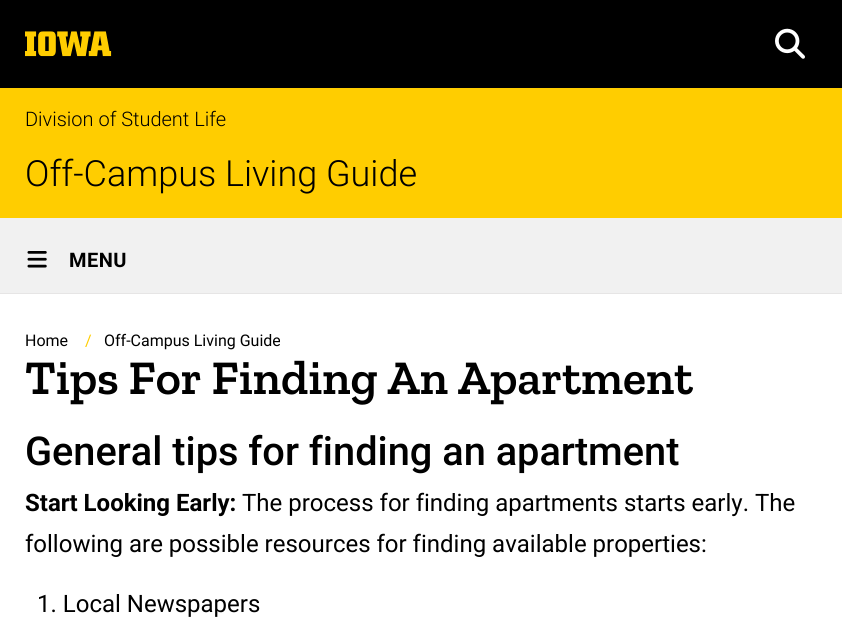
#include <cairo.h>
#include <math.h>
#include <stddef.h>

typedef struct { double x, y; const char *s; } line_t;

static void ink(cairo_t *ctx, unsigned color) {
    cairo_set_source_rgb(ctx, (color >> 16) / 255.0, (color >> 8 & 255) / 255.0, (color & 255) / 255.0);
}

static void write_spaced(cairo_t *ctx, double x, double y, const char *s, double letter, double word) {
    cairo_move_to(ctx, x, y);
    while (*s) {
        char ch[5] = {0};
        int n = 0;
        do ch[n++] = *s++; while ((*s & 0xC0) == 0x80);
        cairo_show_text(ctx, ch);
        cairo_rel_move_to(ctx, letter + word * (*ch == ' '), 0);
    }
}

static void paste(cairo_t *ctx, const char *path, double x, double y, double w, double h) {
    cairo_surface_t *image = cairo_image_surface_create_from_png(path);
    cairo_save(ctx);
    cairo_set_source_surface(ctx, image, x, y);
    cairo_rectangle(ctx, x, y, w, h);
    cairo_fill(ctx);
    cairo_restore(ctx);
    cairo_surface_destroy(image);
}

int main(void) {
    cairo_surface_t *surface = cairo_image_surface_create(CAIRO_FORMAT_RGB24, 842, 617);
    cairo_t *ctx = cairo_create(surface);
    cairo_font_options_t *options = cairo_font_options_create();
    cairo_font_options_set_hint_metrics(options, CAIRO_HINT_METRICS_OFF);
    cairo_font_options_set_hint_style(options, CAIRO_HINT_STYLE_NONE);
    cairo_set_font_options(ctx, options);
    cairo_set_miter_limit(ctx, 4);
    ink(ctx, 0xFFFFFF);
    cairo_paint(ctx);
    ink(ctx, 0x000000);
    cairo_rectangle(ctx, 0, 0, 842, 88);
    cairo_fill(ctx);
    paste(ctx, "media/1.png", 25, 31, 87, 26);
    ink(ctx, 0xFFCD00);
    cairo_rectangle(ctx, 0, 88, 842, 130);
    cairo_fill(ctx);
    cairo_select_font_face(ctx, "Roboto Light", CAIRO_FONT_SLANT_NORMAL, CAIRO_FONT_WEIGHT_NORMAL);
    cairo_set_font_size(ctx, 20);
    ink(ctx, 0x000000);
    cairo_move_to(ctx, 25, 126);
    cairo_show_text(ctx, "Division of Student Life");
    paste(ctx, "media/2.png", 775, 28, 30, 31);
    cairo_set_font_size(ctx, 36);
    cairo_move_to(ctx, 25, 186);
    cairo_show_text(ctx, "Off-Campus Living Guide");
    ink(ctx, 0xE6E5E5);
    cairo_rectangle(ctx, 0, 293, 842, 1);
    cairo_fill(ctx);
    ink(ctx, 0xF1F1F1);
    cairo_rectangle(ctx, 0, 218, 842, 75);
    cairo_fill(ctx);
    paste(ctx, "media/3.png", 27, 251, 20, 17);
    cairo_select_font_face(ctx, "Roboto", CAIRO_FONT_SLANT_NORMAL, CAIRO_FONT_WEIGHT_BOLD);
    cairo_set_font_size(ctx, 20);
    ink(ctx, 0x000000);
    write_spaced(ctx, 69, 267, "MENU", 0.5, 0);
    cairo_select_font_face(ctx, "Roboto", CAIRO_FONT_SLANT_NORMAL, CAIRO_FONT_WEIGHT_NORMAL);
    cairo_set_font_size(ctx, 16);
    cairo_move_to(ctx, 25, 346);
    cairo_show_text(ctx, "Home");
    ink(ctx, 0xFFCD00);
    cairo_move_to(ctx, 85, 346);
    cairo_show_text(ctx, "/");
    ink(ctx, 0x000000);
    cairo_move_to(ctx, 104, 346);
    cairo_show_text(ctx, "Off-Campus Living Guide");
    cairo_select_font_face(ctx, "Zilla Slab SemiBold", CAIRO_FONT_SLANT_NORMAL, CAIRO_FONT_WEIGHT_NORMAL);
    cairo_set_font_size(ctx, 48.25);
    cairo_move_to(ctx, 25, 394);
    cairo_show_text(ctx, "Tips For Finding An Apartment");
    cairo_select_font_face(ctx, "Roboto Medium", CAIRO_FONT_SLANT_NORMAL, CAIRO_FONT_WEIGHT_NORMAL);
    cairo_set_font_size(ctx, 39.75);
    cairo_move_to(ctx, 25, 465);
    cairo_show_text(ctx, "General tips for finding an apartment");
    cairo_select_font_face(ctx, "Roboto", CAIRO_FONT_SLANT_NORMAL, CAIRO_FONT_WEIGHT_BOLD);
    cairo_set_font_size(ctx, 24);
    cairo_move_to(ctx, 25, 511);
    cairo_show_text(ctx, "Start Looking Early:");
    cairo_select_font_face(ctx, "Roboto", CAIRO_FONT_SLANT_NORMAL, CAIRO_FONT_WEIGHT_NORMAL);
    {
        static const line_t items[] = {
            {242, 511, "The process for finding apartments starts early. The"},
            {25, 552, "following are possible resources for finding available properties:"},
            {37, 612, "1. Local Newspapers"},
        };
        for (size_t i = 0; i < sizeof items / sizeof *items; i++) {
            cairo_move_to(ctx, items[i].x, items[i].y);
            cairo_show_text(ctx, items[i].s);
        }
    }
    cairo_surface_write_to_png(surface, "image.png");
    cairo_font_options_destroy(options);
    cairo_destroy(ctx);
    cairo_surface_destroy(surface);
    return 0;
}
